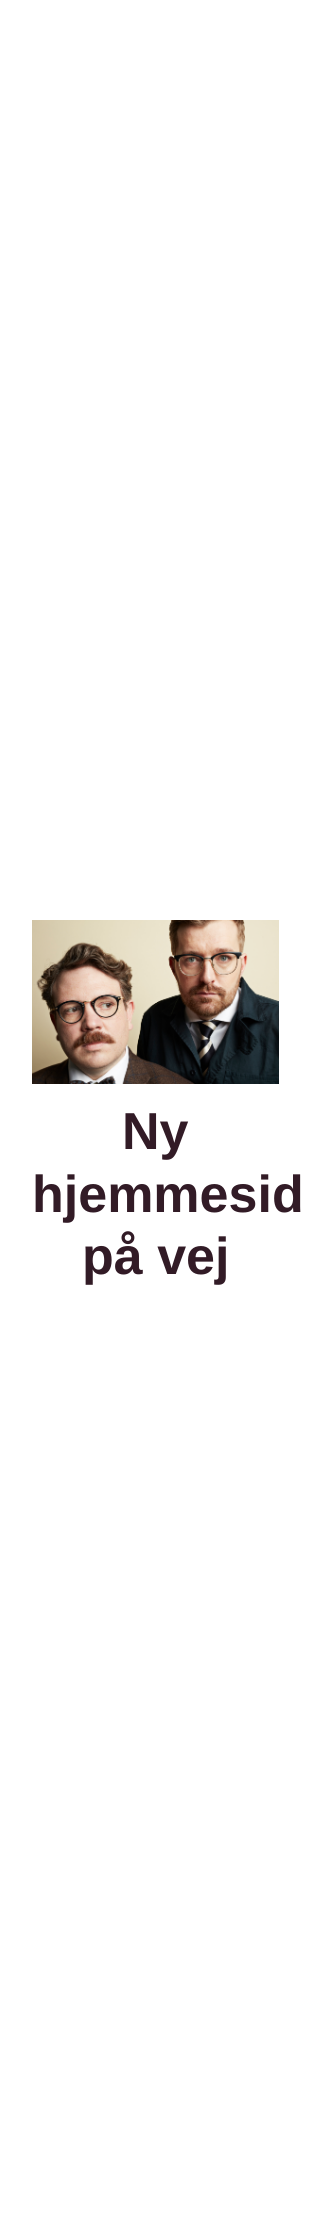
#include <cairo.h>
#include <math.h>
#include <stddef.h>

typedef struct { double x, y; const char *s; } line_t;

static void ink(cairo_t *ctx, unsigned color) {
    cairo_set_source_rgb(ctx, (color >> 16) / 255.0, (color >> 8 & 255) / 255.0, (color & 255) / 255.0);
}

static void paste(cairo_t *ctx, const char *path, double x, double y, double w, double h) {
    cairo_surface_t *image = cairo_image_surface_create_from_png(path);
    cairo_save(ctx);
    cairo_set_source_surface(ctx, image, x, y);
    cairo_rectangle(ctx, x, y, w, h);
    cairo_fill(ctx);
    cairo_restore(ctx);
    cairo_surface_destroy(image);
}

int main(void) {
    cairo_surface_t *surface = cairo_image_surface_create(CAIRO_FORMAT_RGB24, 311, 2223);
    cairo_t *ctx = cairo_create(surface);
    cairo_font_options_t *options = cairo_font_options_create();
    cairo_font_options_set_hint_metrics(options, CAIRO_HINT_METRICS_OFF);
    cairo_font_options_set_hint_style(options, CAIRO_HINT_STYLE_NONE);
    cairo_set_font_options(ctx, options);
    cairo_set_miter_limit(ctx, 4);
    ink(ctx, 0xFFFFFF);
    cairo_paint(ctx);
    paste(ctx, "media/1.png", 32, 920, 247, 164);
    cairo_select_font_face(ctx, "Liberation Sans", CAIRO_FONT_SLANT_NORMAL, CAIRO_FONT_WEIGHT_BOLD);
    cairo_set_font_size(ctx, 52);
    ink(ctx, 0x321B26);
    {
        static const line_t items[] = {
            {122, 1149, "Ny"},
            {32, 1212, "hjemmesid"},
            {82, 1274, "på vej"},
        };
        for (size_t i = 0; i < sizeof items / sizeof *items; i++) {
            cairo_move_to(ctx, items[i].x, items[i].y);
            cairo_show_text(ctx, items[i].s);
        }
    }
    cairo_surface_write_to_png(surface, "image.png");
    cairo_font_options_destroy(options);
    cairo_destroy(ctx);
    cairo_surface_destroy(surface);
    return 0;
}
